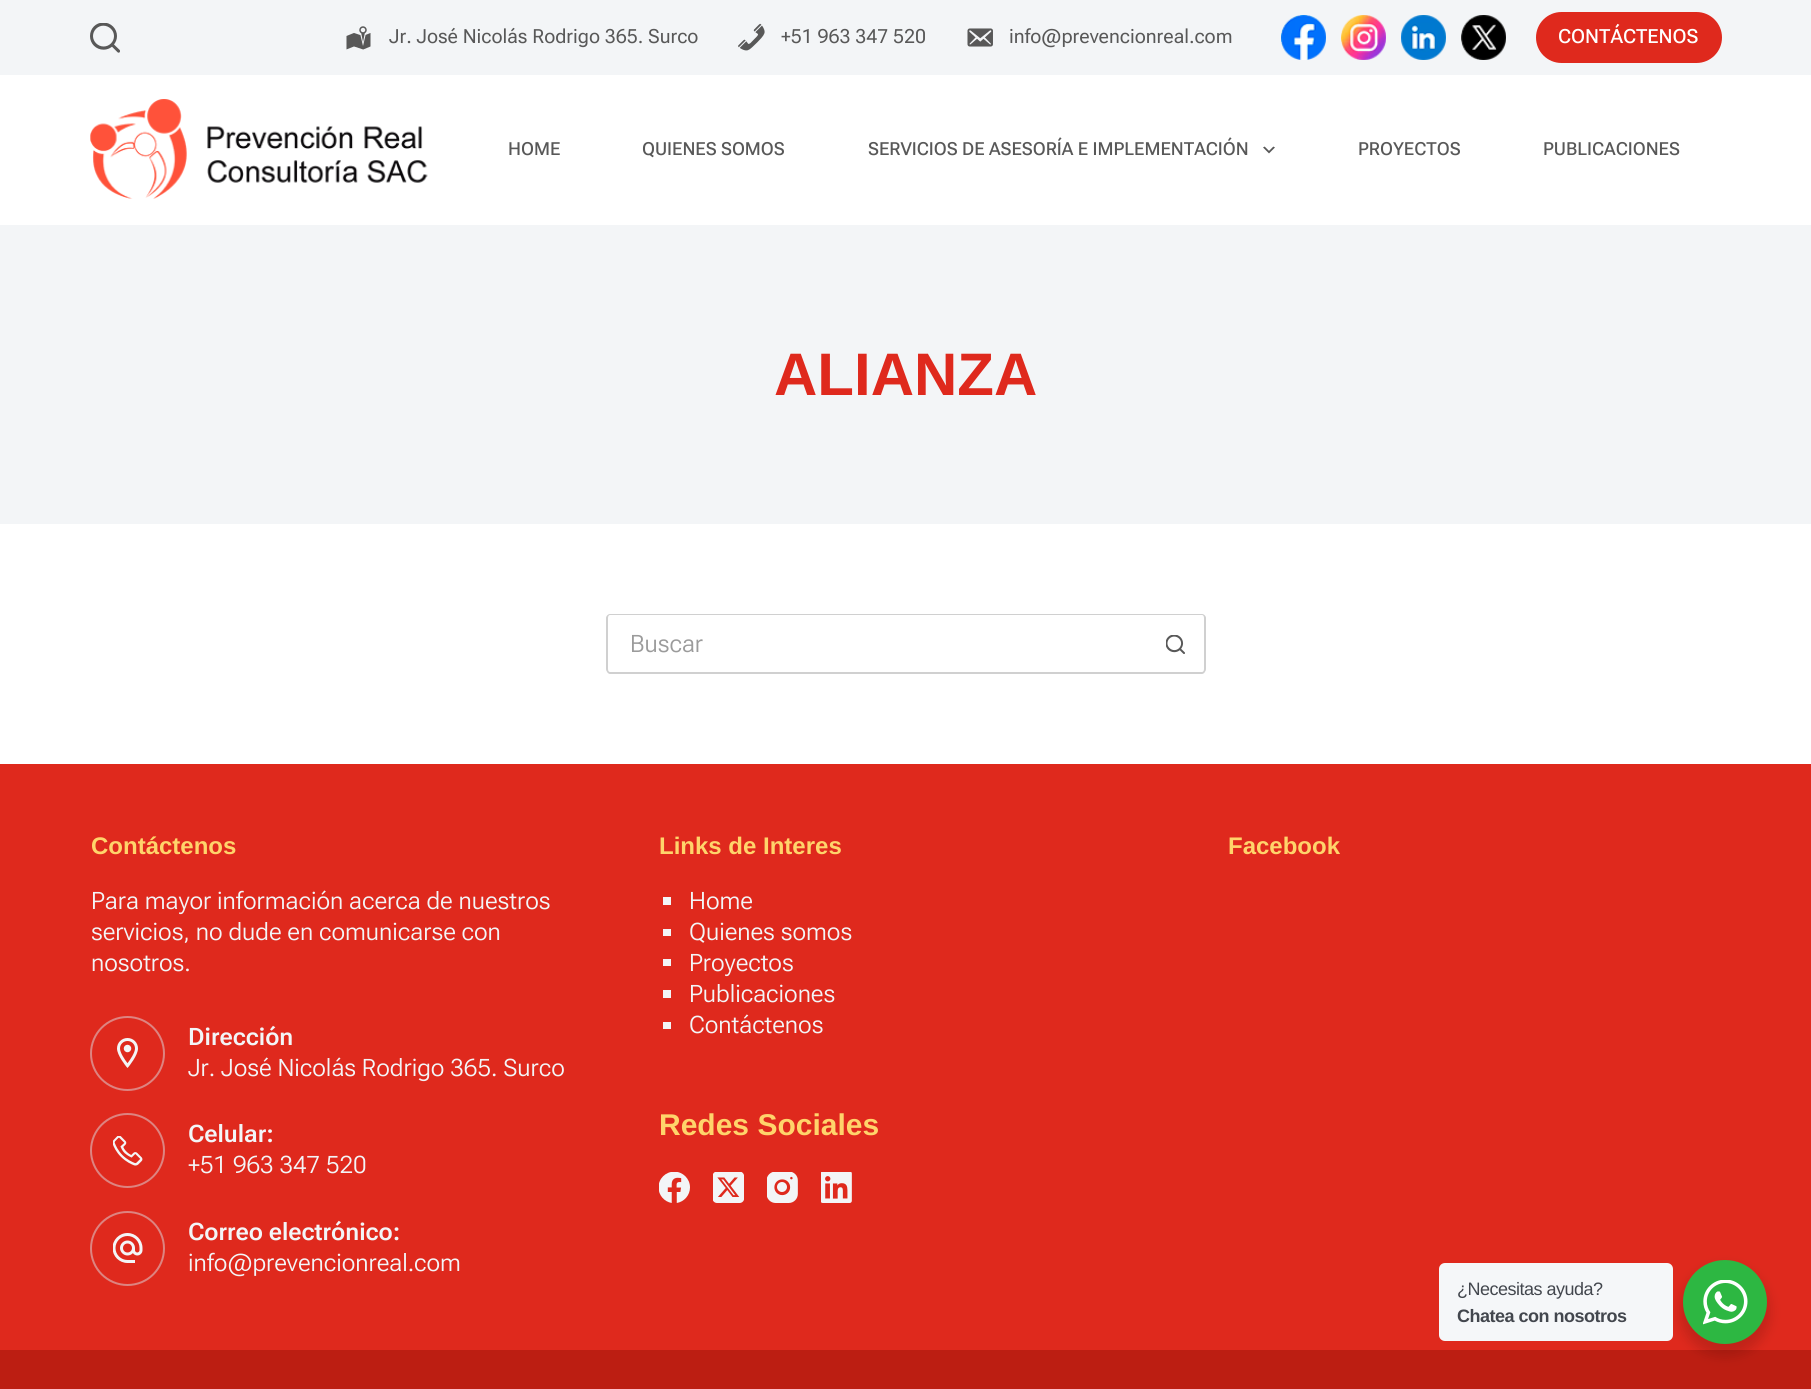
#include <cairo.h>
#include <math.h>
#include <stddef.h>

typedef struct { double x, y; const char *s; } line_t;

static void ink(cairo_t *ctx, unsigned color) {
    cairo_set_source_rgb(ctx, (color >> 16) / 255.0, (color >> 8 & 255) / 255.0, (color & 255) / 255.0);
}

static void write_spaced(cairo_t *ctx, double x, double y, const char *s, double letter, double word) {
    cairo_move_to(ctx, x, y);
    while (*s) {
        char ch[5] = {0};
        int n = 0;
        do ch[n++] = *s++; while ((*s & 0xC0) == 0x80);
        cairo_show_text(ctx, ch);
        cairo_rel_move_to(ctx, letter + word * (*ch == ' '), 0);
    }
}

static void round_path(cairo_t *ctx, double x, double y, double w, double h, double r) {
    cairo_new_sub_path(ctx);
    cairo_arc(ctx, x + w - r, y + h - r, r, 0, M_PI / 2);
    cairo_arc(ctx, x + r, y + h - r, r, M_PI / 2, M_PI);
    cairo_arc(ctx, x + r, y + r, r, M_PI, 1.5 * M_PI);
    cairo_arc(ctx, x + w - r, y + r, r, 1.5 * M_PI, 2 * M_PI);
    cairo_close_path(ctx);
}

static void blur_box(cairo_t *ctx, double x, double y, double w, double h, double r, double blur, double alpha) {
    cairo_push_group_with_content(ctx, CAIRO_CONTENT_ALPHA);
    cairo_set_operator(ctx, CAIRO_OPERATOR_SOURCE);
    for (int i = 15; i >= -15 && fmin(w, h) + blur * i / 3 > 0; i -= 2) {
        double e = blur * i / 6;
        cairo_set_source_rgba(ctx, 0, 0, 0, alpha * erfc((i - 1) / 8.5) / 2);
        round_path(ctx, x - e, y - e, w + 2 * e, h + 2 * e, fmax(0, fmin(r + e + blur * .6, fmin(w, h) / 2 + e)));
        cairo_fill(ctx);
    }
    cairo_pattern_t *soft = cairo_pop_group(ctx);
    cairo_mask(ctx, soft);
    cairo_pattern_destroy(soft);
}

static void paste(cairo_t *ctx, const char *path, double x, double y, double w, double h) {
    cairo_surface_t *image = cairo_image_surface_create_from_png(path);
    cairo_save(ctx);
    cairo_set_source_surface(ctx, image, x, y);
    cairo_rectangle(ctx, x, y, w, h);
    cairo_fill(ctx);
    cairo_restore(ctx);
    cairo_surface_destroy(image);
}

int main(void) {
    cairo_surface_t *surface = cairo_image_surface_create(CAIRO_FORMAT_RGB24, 1811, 1389);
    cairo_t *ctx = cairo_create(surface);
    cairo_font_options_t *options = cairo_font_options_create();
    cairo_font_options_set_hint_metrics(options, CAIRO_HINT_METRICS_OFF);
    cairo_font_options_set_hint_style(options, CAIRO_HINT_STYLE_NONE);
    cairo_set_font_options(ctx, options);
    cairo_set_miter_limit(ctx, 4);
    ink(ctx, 0xFFFFFF);
    cairo_paint(ctx);
    ink(ctx, 0xF3F5F7);
    cairo_rectangle(ctx, 0, 0, 1811, 75);
    cairo_fill(ctx);
    paste(ctx, "media/1.png", 90, 23, 30, 30);
    paste(ctx, "media/2.png", 346, 26, 25, 24);
    cairo_select_font_face(ctx, "Roboto Flex", CAIRO_FONT_SLANT_NORMAL, CAIRO_FONT_WEIGHT_NORMAL);
    cairo_set_font_size(ctx, 19.5);
    ink(ctx, 0x585858);
    cairo_move_to(ctx, 389, 43);
    cairo_show_text(ctx, "Jr. José Nicolás Rodrigo 365. Surco");
    paste(ctx, "media/3.png", 738, 23, 27, 28);
    cairo_move_to(ctx, 781, 43);
    cairo_show_text(ctx, "+51 963 347 520");
    paste(ctx, "media/4.png", 967, 28, 26, 19);
    cairo_move_to(ctx, 1009, 43);
    cairo_show_text(ctx, "info@prevencionreal.com");
    paste(ctx, "media/5.png", 1281, 15, 45, 45);
    paste(ctx, "media/6.png", 1341, 15, 45, 45);
    paste(ctx, "media/7.png", 1401, 15, 45, 45);
    paste(ctx, "media/8.png", 1461, 15, 45, 45);
    ink(ctx, 0xDF291D);
    round_path(ctx, 1536, 12, 186, 51, 25.5);
    cairo_fill(ctx);
    cairo_select_font_face(ctx, "Roboto Flex Medium", CAIRO_FONT_SLANT_NORMAL, CAIRO_FONT_WEIGHT_NORMAL);
    ink(ctx, 0xFFFFFF);
    cairo_move_to(ctx, 1558, 43);
    cairo_show_text(ctx, "CONTÁCTENOS");
    paste(ctx, "media/9.png", 90, 99, 338, 100);
    cairo_set_font_size(ctx, 18);
    ink(ctx, 0x585858);
    {
        static const line_t items[] = {
            {508, 155, "HOME"},
            {642, 155, "QUIENES SOMOS"},
            {868, 155, "SERVICIOS DE ASESORÍA E IMPLEMENTACIÓN"},
        };
        for (size_t i = 0; i < sizeof items / sizeof *items; i++) {
            cairo_move_to(ctx, items[i].x, items[i].y);
            cairo_show_text(ctx, items[i].s);
        }
    }
    paste(ctx, "media/10.png", 1263, 146, 12, 8);
    cairo_move_to(ctx, 1358, 155);
    cairo_show_text(ctx, "PROYECTOS");
    cairo_move_to(ctx, 1543, 155);
    cairo_show_text(ctx, "PUBLICACIONES");
    ink(ctx, 0xF3F5F7);
    cairo_rectangle(ctx, 0, 225, 1811, 299);
    cairo_fill(ctx);
    cairo_select_font_face(ctx, "Liberation Sans", CAIRO_FONT_SLANT_NORMAL, CAIRO_FONT_WEIGHT_BOLD);
    cairo_set_font_size(ctx, 60);
    ink(ctx, 0xDF291D);
    cairo_move_to(ctx, 774, 395);
    cairo_show_text(ctx, "ALIANZA");
    ink(ctx, 0xD0D0D0);
    cairo_set_fill_rule(ctx, CAIRO_FILL_RULE_EVEN_ODD);
    cairo_new_path(ctx);
    cairo_move_to(ctx, 610, 614);
    cairo_line_to(ctx, 1146, 614);
    cairo_line_to(ctx, 1146, 674);
    cairo_line_to(ctx, 610, 674);
    cairo_curve_to(ctx, 608, 674, 606, 671, 606, 669);
    cairo_line_to(ctx, 606, 618);
    cairo_curve_to(ctx, 606, 616, 608, 614, 610, 614);
    cairo_close_path(ctx);
    cairo_move_to(ctx, 610, 615);
    cairo_line_to(ctx, 1146, 615);
    cairo_line_to(ctx, 1146, 672);
    cairo_line_to(ctx, 610, 672);
    cairo_curve_to(ctx, 609, 672, 608, 671, 608, 669);
    cairo_line_to(ctx, 608, 618);
    cairo_curve_to(ctx, 608, 616, 609, 615, 610, 615);
    cairo_close_path(ctx);
    cairo_fill(ctx);
    cairo_select_font_face(ctx, "Roboto Flex Light", CAIRO_FONT_SLANT_NORMAL, CAIRO_FONT_WEIGHT_NORMAL);
    cairo_set_font_size(ctx, 24);
    ink(ctx, 0x9B9B9B);
    cairo_move_to(ctx, 630, 652);
    cairo_show_text(ctx, "Buscar");
    ink(ctx, 0xD0D0D0);
    cairo_new_path(ctx);
    cairo_move_to(ctx, 1146, 614);
    cairo_line_to(ctx, 1202, 614);
    cairo_curve_to(ctx, 1204, 614, 1206, 616, 1206, 618);
    cairo_line_to(ctx, 1206, 669);
    cairo_curve_to(ctx, 1206, 671, 1204, 674, 1202, 674);
    cairo_line_to(ctx, 1146, 674);
    cairo_close_path(ctx);
    cairo_move_to(ctx, 1146, 615);
    cairo_line_to(ctx, 1202, 615);
    cairo_curve_to(ctx, 1203, 615, 1204, 616, 1204, 618);
    cairo_line_to(ctx, 1204, 669);
    cairo_curve_to(ctx, 1204, 671, 1203, 672, 1202, 672);
    cairo_line_to(ctx, 1146, 672);
    cairo_close_path(ctx);
    cairo_fill(ctx);
    paste(ctx, "media/11.png", 1166, 635, 19, 19);
    ink(ctx, 0xDF291D);
    cairo_rectangle(ctx, 0, 764, 1811, 586);
    cairo_fill(ctx);
    cairo_select_font_face(ctx, "Liberation Sans", CAIRO_FONT_SLANT_NORMAL, CAIRO_FONT_WEIGHT_BOLD);
    ink(ctx, 0xFFD46B);
    cairo_move_to(ctx, 91, 854);
    cairo_show_text(ctx, "Contáctenos");
    cairo_select_font_face(ctx, "Roboto Flex Light", CAIRO_FONT_SLANT_NORMAL, CAIRO_FONT_WEIGHT_NORMAL);
    ink(ctx, 0xF3F5F7);
    {
        static const line_t items[] = {
            {91, 909, "Para mayor información acerca de nuestros"},
            {91, 940, "servicios, no dude en comunicarse con"},
            {91, 971, "nosotros."},
        };
        for (size_t i = 0; i < sizeof items / sizeof *items; i++) {
            cairo_move_to(ctx, items[i].x, items[i].y);
            cairo_show_text(ctx, items[i].s);
        }
    }
    cairo_new_path(ctx);
    cairo_arc(ctx, 127.5, 1053.5, 36.5, 0, 2 * M_PI);
    ink(ctx, 0xDD8481);
    cairo_stroke(ctx);
    paste(ctx, "media/12.png", 117, 1038, 21, 30);
    cairo_select_font_face(ctx, "Roboto Flex SemiBold", CAIRO_FONT_SLANT_NORMAL, CAIRO_FONT_WEIGHT_NORMAL);
    ink(ctx, 0xF3F5F7);
    cairo_move_to(ctx, 188, 1045);
    cairo_show_text(ctx, "Dirección");
    cairo_select_font_face(ctx, "Roboto Flex Light", CAIRO_FONT_SLANT_NORMAL, CAIRO_FONT_WEIGHT_NORMAL);
    cairo_move_to(ctx, 188, 1076);
    cairo_show_text(ctx, "Jr. José Nicolás Rodrigo 365. Surco");
    cairo_new_path(ctx);
    cairo_arc(ctx, 127.5, 1150.5, 36.5, 0, 2 * M_PI);
    ink(ctx, 0xDD8481);
    cairo_stroke(ctx);
    paste(ctx, "media/13.png", 113, 1136, 30, 30);
    cairo_select_font_face(ctx, "Roboto Flex SemiBold", CAIRO_FONT_SLANT_NORMAL, CAIRO_FONT_WEIGHT_NORMAL);
    ink(ctx, 0xF3F5F7);
    cairo_move_to(ctx, 188, 1142);
    cairo_show_text(ctx, "Celular:");
    cairo_select_font_face(ctx, "Roboto Flex Light", CAIRO_FONT_SLANT_NORMAL, CAIRO_FONT_WEIGHT_NORMAL);
    cairo_move_to(ctx, 188, 1173);
    cairo_show_text(ctx, "+51 963 347 520");
    cairo_new_path(ctx);
    cairo_arc(ctx, 127.5, 1248.5, 36.5, 0, 2 * M_PI);
    ink(ctx, 0xDD8481);
    cairo_stroke(ctx);
    paste(ctx, "media/14.png", 113, 1233, 30, 30);
    cairo_select_font_face(ctx, "Roboto Flex SemiBold", CAIRO_FONT_SLANT_NORMAL, CAIRO_FONT_WEIGHT_NORMAL);
    ink(ctx, 0xF3F5F7);
    cairo_move_to(ctx, 188, 1240);
    cairo_show_text(ctx, "Correo electrónico:");
    cairo_select_font_face(ctx, "Roboto Flex Light", CAIRO_FONT_SLANT_NORMAL, CAIRO_FONT_WEIGHT_NORMAL);
    cairo_move_to(ctx, 188, 1271);
    cairo_show_text(ctx, "info@prevencionreal.com");
    cairo_select_font_face(ctx, "Liberation Sans", CAIRO_FONT_SLANT_NORMAL, CAIRO_FONT_WEIGHT_BOLD);
    ink(ctx, 0xFFD46B);
    cairo_move_to(ctx, 659, 854);
    cairo_show_text(ctx, "Links de Interes");
    ink(ctx, 0xF3F5F7);
    cairo_rectangle(ctx, 663, 897, 8, 8);
    cairo_fill(ctx);
    cairo_select_font_face(ctx, "Roboto Flex Light", CAIRO_FONT_SLANT_NORMAL, CAIRO_FONT_WEIGHT_NORMAL);
    cairo_move_to(ctx, 689, 909);
    cairo_show_text(ctx, "Home");
    cairo_rectangle(ctx, 663, 929, 8, 7);
    cairo_fill(ctx);
    cairo_move_to(ctx, 689, 940);
    cairo_show_text(ctx, "Quienes somos");
    cairo_rectangle(ctx, 663, 959, 8, 7);
    cairo_fill(ctx);
    cairo_move_to(ctx, 689, 971);
    cairo_show_text(ctx, "Proyectos");
    cairo_rectangle(ctx, 663, 990, 8, 8);
    cairo_fill(ctx);
    cairo_move_to(ctx, 689, 1002);
    cairo_show_text(ctx, "Publicaciones");
    cairo_rectangle(ctx, 663, 1022, 8, 7);
    cairo_fill(ctx);
    cairo_move_to(ctx, 689, 1033);
    cairo_show_text(ctx, "Contáctenos");
    cairo_select_font_face(ctx, "Liberation Sans", CAIRO_FONT_SLANT_NORMAL, CAIRO_FONT_WEIGHT_BOLD);
    cairo_set_font_size(ctx, 30);
    ink(ctx, 0xFFD46B);
    cairo_move_to(ctx, 659, 1135);
    cairo_show_text(ctx, "Redes Sociales");
    paste(ctx, "media/15.png", 659, 1172, 31, 31);
    paste(ctx, "media/16.png", 713, 1172, 31, 31);
    paste(ctx, "media/17.png", 767, 1172, 31, 31);
    paste(ctx, "media/18.png", 821, 1172, 31, 31);
    cairo_set_font_size(ctx, 24);
    cairo_move_to(ctx, 1228, 854);
    cairo_show_text(ctx, "Facebook");
    ink(ctx, 0xBC1E12);
    cairo_rectangle(ctx, 0, 1350, 1811, 39);
    cairo_fill(ctx);
    ink(ctx, 0x000000);
    blur_box(ctx, 1680, 1266, 90, 90, 45, 6, 0.14);
    ink(ctx, 0xF5F7F9);
    round_path(ctx, 1439, 1263, 234, 78, 6);
    cairo_fill(ctx);
    cairo_select_font_face(ctx, "Liberation Sans", CAIRO_FONT_SLANT_NORMAL, CAIRO_FONT_WEIGHT_NORMAL);
    cairo_set_font_size(ctx, 18);
    ink(ctx, 0x43474E);
    write_spaced(ctx, 1457, 1295, "¿Necesitas ayuda?", -0.5, 0);
    cairo_select_font_face(ctx, "Liberation Sans", CAIRO_FONT_SLANT_NORMAL, CAIRO_FONT_WEIGHT_BOLD);
    write_spaced(ctx, 1457, 1322, "Chatea con nosotros", -0.5, 0);
    ink(ctx, 0x2DB742);
    cairo_new_path(ctx);
    cairo_arc(ctx, 1725, 1302, 42, 0, 2 * M_PI);
    cairo_fill(ctx);
    paste(ctx, "media/19.png", 1703, 1280, 45, 45);
    cairo_surface_write_to_png(surface, "image.png");
    cairo_font_options_destroy(options);
    cairo_destroy(ctx);
    cairo_surface_destroy(surface);
    return 0;
}
